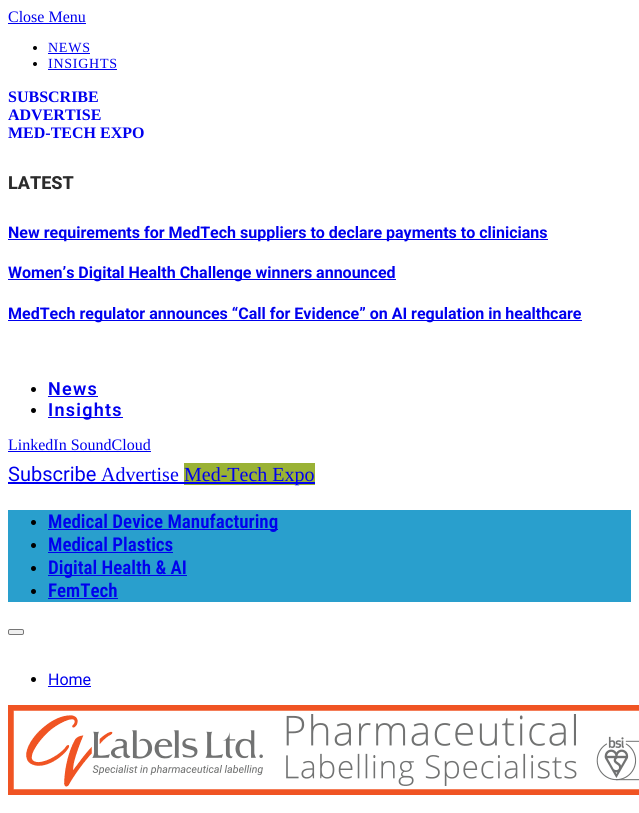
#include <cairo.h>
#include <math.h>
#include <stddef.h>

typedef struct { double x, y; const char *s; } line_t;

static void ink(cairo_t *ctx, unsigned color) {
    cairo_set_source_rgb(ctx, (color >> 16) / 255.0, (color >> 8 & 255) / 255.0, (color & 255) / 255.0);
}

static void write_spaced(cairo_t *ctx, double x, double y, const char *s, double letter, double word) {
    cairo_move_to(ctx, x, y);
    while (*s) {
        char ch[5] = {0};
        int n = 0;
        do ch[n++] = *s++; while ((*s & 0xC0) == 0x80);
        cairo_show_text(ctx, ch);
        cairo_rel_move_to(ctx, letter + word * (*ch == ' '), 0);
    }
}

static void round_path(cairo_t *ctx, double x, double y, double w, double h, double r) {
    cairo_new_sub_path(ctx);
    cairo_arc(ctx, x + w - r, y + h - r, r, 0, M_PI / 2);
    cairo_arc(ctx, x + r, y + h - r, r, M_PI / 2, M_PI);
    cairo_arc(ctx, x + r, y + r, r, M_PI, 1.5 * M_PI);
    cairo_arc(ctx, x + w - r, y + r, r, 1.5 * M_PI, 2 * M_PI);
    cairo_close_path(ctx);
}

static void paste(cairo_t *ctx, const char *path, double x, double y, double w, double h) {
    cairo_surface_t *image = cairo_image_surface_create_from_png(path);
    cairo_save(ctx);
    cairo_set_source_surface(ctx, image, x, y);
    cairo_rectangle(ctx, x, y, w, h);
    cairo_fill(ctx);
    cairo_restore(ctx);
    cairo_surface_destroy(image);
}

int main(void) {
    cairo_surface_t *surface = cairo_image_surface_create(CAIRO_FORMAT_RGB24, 639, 813);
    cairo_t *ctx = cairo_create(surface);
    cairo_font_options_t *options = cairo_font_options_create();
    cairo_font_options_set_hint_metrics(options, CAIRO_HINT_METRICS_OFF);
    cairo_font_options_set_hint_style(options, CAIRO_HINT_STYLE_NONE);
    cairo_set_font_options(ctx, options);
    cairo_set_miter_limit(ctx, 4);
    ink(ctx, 0xFFFFFF);
    cairo_paint(ctx);
    cairo_select_font_face(ctx, "Liberation Serif", CAIRO_FONT_SLANT_NORMAL, CAIRO_FONT_WEIGHT_NORMAL);
    cairo_set_font_size(ctx, 16);
    ink(ctx, 0x0000EE);
    cairo_move_to(ctx, 8, 22);
    cairo_show_text(ctx, "Close Menu");
    cairo_rectangle(ctx, 8, 23, 78, 1);
    cairo_fill(ctx);
    ink(ctx, 0x000000);
    cairo_arc(ctx, 35, 48, 2, 0, 2 * M_PI);
    cairo_fill(ctx);
    cairo_set_font_size(ctx, 14);
    ink(ctx, 0x0000EE);
    write_spaced(ctx, 48, 52, "NEWS", 0.75, 0);
    cairo_rectangle(ctx, 48, 53, 42, 1);
    cairo_fill(ctx);
    ink(ctx, 0x000000);
    cairo_arc(ctx, 35, 64, 2, 0, 2 * M_PI);
    cairo_fill(ctx);
    ink(ctx, 0x0000EE);
    write_spaced(ctx, 48, 68, "INSIGHTS", 0.75, 0);
    cairo_rectangle(ctx, 48, 69, 69, 1);
    cairo_fill(ctx);
    cairo_select_font_face(ctx, "Liberation Serif", CAIRO_FONT_SLANT_NORMAL, CAIRO_FONT_WEIGHT_BOLD);
    cairo_set_font_size(ctx, 16);
    {
        static const line_t items[] = {
            {8, 102, "SUBSCRIBE"},
            {8, 120, "ADVERTISE"},
            {8, 138, "MED-TECH EXPO"},
        };
        for (size_t i = 0; i < sizeof items / sizeof *items; i++) {
            cairo_move_to(ctx, items[i].x, items[i].y);
            cairo_show_text(ctx, items[i].s);
        }
    }
    cairo_select_font_face(ctx, "Roboto ExtraBold", CAIRO_FONT_SLANT_NORMAL, CAIRO_FONT_WEIGHT_NORMAL);
    cairo_set_font_size(ctx, 18);
    ink(ctx, 0x2B2B2B);
    cairo_move_to(ctx, 8, 189);
    cairo_show_text(ctx, "LATEST");
    ink(ctx, 0x0000EE);
    cairo_rectangle(ctx, 8, 239, 540, 1);
    cairo_fill(ctx);
    cairo_select_font_face(ctx, "Roboto", CAIRO_FONT_SLANT_NORMAL, CAIRO_FONT_WEIGHT_BOLD);
    cairo_set_font_size(ctx, 16);
    cairo_move_to(ctx, 8, 238);
    cairo_show_text(ctx, "New requirements for MedTech suppliers to declare payments to clinicians");
    cairo_rectangle(ctx, 8, 279, 388, 1);
    cairo_fill(ctx);
    cairo_move_to(ctx, 8, 278);
    cairo_show_text(ctx, "Women’s Digital Health Challenge winners announced");
    cairo_rectangle(ctx, 8, 320, 574, 1);
    cairo_fill(ctx);
    cairo_move_to(ctx, 8, 319);
    cairo_show_text(ctx, "MedTech regulator announces “Call for Evidence” on AI regulation in healthcare");
    ink(ctx, 0x000000);
    cairo_new_path(ctx);
    cairo_arc(ctx, 33.5, 389.5, 2.5, 0, 2 * M_PI);
    cairo_fill(ctx);
    cairo_select_font_face(ctx, "Roboto SemiBold", CAIRO_FONT_SLANT_NORMAL, CAIRO_FONT_WEIGHT_NORMAL);
    cairo_set_font_size(ctx, 18);
    ink(ctx, 0x0000EE);
    write_spaced(ctx, 48, 395, "News", 1.25, 0);
    cairo_rectangle(ctx, 48, 396, 50, 1);
    cairo_fill(ctx);
    ink(ctx, 0x000000);
    cairo_arc(ctx, 33.5, 410.5, 2.5, 0, 2 * M_PI);
    cairo_fill(ctx);
    ink(ctx, 0x0000EE);
    cairo_rectangle(ctx, 48, 417, 75, 1);
    cairo_fill(ctx);
    write_spaced(ctx, 48, 416, "Insights", 1.25, 0);
    cairo_select_font_face(ctx, "Liberation Serif", CAIRO_FONT_SLANT_NORMAL, CAIRO_FONT_WEIGHT_NORMAL);
    cairo_set_font_size(ctx, 16);
    cairo_move_to(ctx, 8, 450);
    cairo_show_text(ctx, "LinkedIn SoundCloud");
    cairo_rectangle(ctx, 8, 451, 143, 1);
    cairo_fill(ctx);
    cairo_select_font_face(ctx, "Roboto", CAIRO_FONT_SLANT_NORMAL, CAIRO_FONT_WEIGHT_NORMAL);
    cairo_set_font_size(ctx, 20);
    cairo_move_to(ctx, 8, 481);
    cairo_show_text(ctx, "Subscribe");
    cairo_rectangle(ctx, 8, 482, 176, 2);
    cairo_fill(ctx);
    cairo_select_font_face(ctx, "Liberation Serif", CAIRO_FONT_SLANT_NORMAL, CAIRO_FONT_WEIGHT_NORMAL);
    cairo_move_to(ctx, 101, 481);
    cairo_show_text(ctx, "Advertise");
    ink(ctx, 0x9AB235);
    cairo_rectangle(ctx, 184, 463, 131, 22);
    cairo_fill(ctx);
    ink(ctx, 0x0000EE);
    cairo_rectangle(ctx, 184, 482, 131, 2);
    cairo_fill(ctx);
    cairo_move_to(ctx, 184, 481);
    cairo_show_text(ctx, "Med-Tech Expo");
    ink(ctx, 0x299FCD);
    cairo_rectangle(ctx, 8, 510, 623, 92);
    cairo_fill(ctx);
    ink(ctx, 0x000000);
    cairo_arc(ctx, 33.5, 522.5, 2.5, 0, 2 * M_PI);
    cairo_fill(ctx);
    ink(ctx, 0x0000EE);
    cairo_rectangle(ctx, 48, 529, 230, 1);
    cairo_fill(ctx);
    cairo_select_font_face(ctx, "Roboto Condensed SemiBold", CAIRO_FONT_SLANT_NORMAL, CAIRO_FONT_WEIGHT_NORMAL);
    cairo_set_font_size(ctx, 19);
    cairo_move_to(ctx, 48, 528);
    cairo_show_text(ctx, "Medical Device Manufacturing");
    ink(ctx, 0x000000);
    cairo_new_path(ctx);
    cairo_arc(ctx, 33.5, 545.5, 2.5, 0, 2 * M_PI);
    cairo_fill(ctx);
    ink(ctx, 0x0000EE);
    cairo_move_to(ctx, 48, 551);
    cairo_show_text(ctx, "Medical Plastics");
    cairo_rectangle(ctx, 48, 552, 125, 1);
    cairo_fill(ctx);
    ink(ctx, 0x000000);
    cairo_arc(ctx, 33.5, 568.5, 2.5, 0, 2 * M_PI);
    cairo_fill(ctx);
    ink(ctx, 0x0000EE);
    cairo_rectangle(ctx, 48, 575, 139, 1);
    cairo_fill(ctx);
    cairo_move_to(ctx, 48, 574);
    cairo_show_text(ctx, "Digital Health & AI");
    ink(ctx, 0x000000);
    cairo_new_path(ctx);
    cairo_arc(ctx, 33.5, 591.5, 2.5, 0, 2 * M_PI);
    cairo_fill(ctx);
    ink(ctx, 0x0000EE);
    cairo_move_to(ctx, 48, 597);
    cairo_show_text(ctx, "FemTech");
    cairo_rectangle(ctx, 48, 598, 70, 1);
    cairo_fill(ctx);
    ink(ctx, 0xEFEFEF);
    round_path(ctx, 8.5, 629.5, 15, 5, 1.5);
    cairo_fill_preserve(ctx);
    ink(ctx, 0x767676);
    cairo_set_line_width(ctx, 1);
    cairo_stroke(ctx);
    ink(ctx, 0x000000);
    cairo_arc(ctx, 33.5, 679.5, 2.5, 0, 2 * M_PI);
    cairo_fill(ctx);
    cairo_select_font_face(ctx, "Roboto", CAIRO_FONT_SLANT_NORMAL, CAIRO_FONT_WEIGHT_NORMAL);
    cairo_set_font_size(ctx, 16);
    ink(ctx, 0x0000EE);
    cairo_move_to(ctx, 48, 685);
    cairo_show_text(ctx, "Home");
    cairo_rectangle(ctx, 48, 686, 43, 1);
    cairo_fill(ctx);
    paste(ctx, "media/1.png", 8, 705, 631, 90);
    cairo_surface_write_to_png(surface, "image.png");
    cairo_font_options_destroy(options);
    cairo_destroy(ctx);
    cairo_surface_destroy(surface);
    return 0;
}
